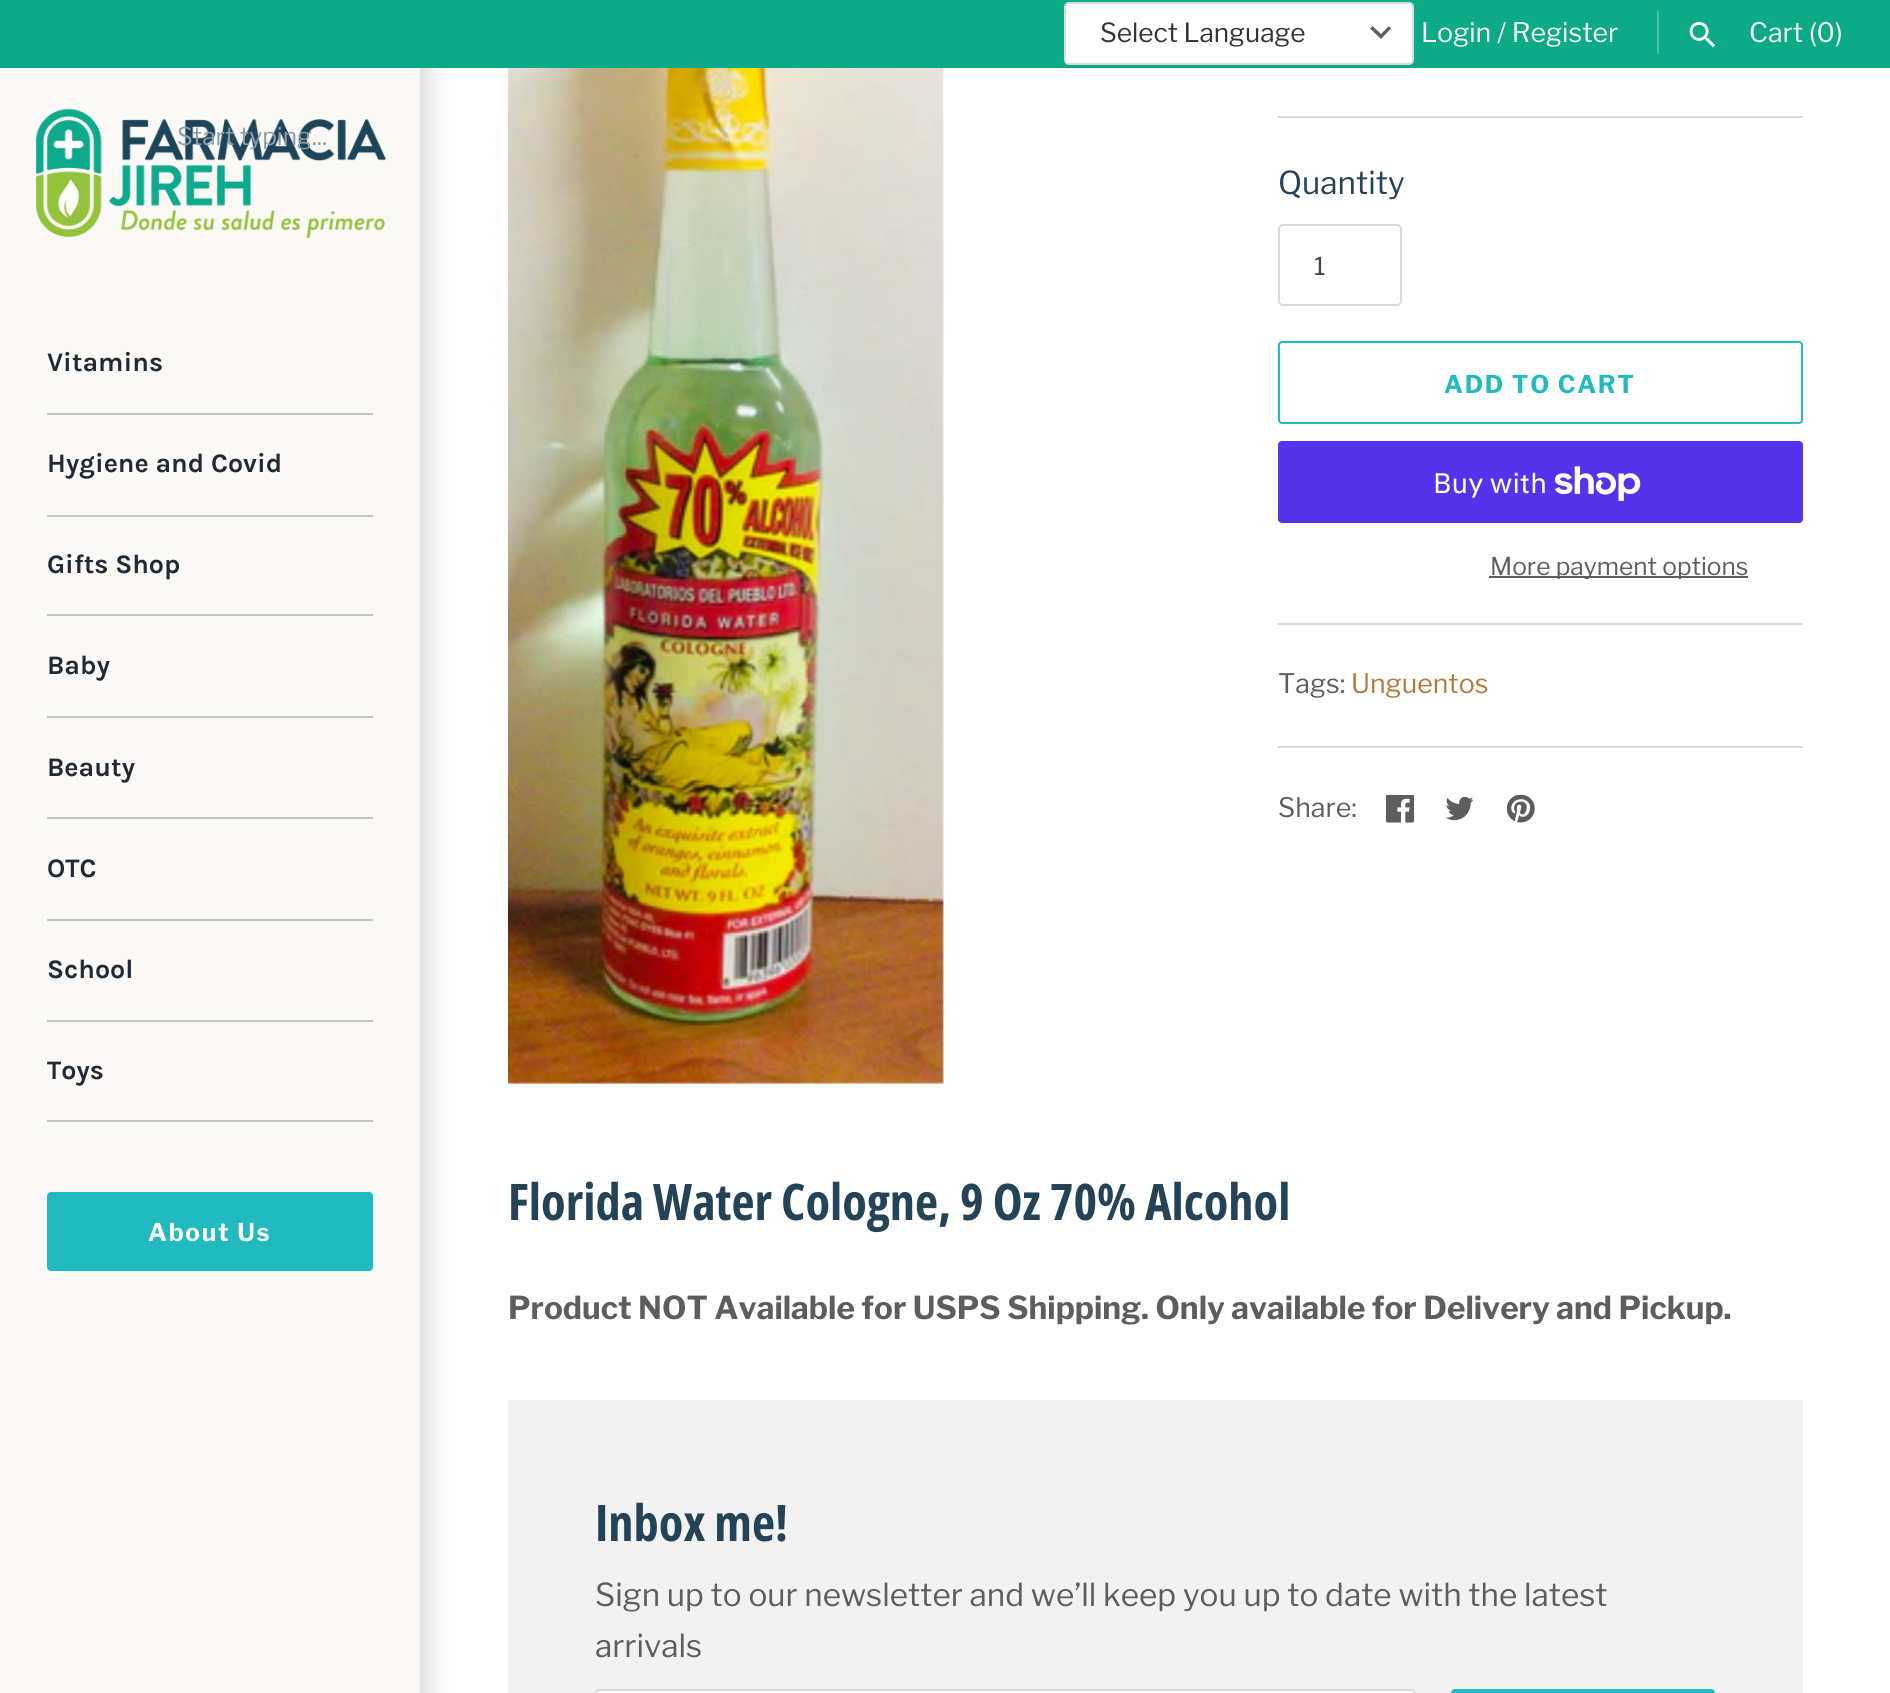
#include <cairo.h>
#include <math.h>
#include <stddef.h>


static void ink(cairo_t *ctx, unsigned color) {
    cairo_set_source_rgb(ctx, (color >> 16) / 255.0, (color >> 8 & 255) / 255.0, (color & 255) / 255.0);
}

static void write_spaced(cairo_t *ctx, double x, double y, const char *s, double letter, double word) {
    cairo_move_to(ctx, x, y);
    while (*s) {
        char ch[5] = {0};
        int n = 0;
        do ch[n++] = *s++; while ((*s & 0xC0) == 0x80);
        cairo_show_text(ctx, ch);
        cairo_rel_move_to(ctx, letter + word * (*ch == ' '), 0);
    }
}

static void round_path(cairo_t *ctx, double x, double y, double w, double h, double r) {
    cairo_new_sub_path(ctx);
    cairo_arc(ctx, x + w - r, y + h - r, r, 0, M_PI / 2);
    cairo_arc(ctx, x + r, y + h - r, r, M_PI / 2, M_PI);
    cairo_arc(ctx, x + r, y + r, r, M_PI, 1.5 * M_PI);
    cairo_arc(ctx, x + w - r, y + r, r, 1.5 * M_PI, 2 * M_PI);
    cairo_close_path(ctx);
}

static void blur_box(cairo_t *ctx, double x, double y, double w, double h, double r, double blur, double alpha) {
    cairo_push_group_with_content(ctx, CAIRO_CONTENT_ALPHA);
    cairo_set_operator(ctx, CAIRO_OPERATOR_SOURCE);
    for (int i = 15; i >= -15 && fmin(w, h) + blur * i / 3 > 0; i -= 2) {
        double e = blur * i / 6;
        cairo_set_source_rgba(ctx, 0, 0, 0, alpha * erfc((i - 1) / 8.5) / 2);
        round_path(ctx, x - e, y - e, w + 2 * e, h + 2 * e, fmax(0, fmin(r + e + blur * .6, fmin(w, h) / 2 + e)));
        cairo_fill(ctx);
    }
    cairo_pattern_t *soft = cairo_pop_group(ctx);
    cairo_mask(ctx, soft);
    cairo_pattern_destroy(soft);
}

static void paste(cairo_t *ctx, const char *path, double x, double y, double w, double h) {
    cairo_surface_t *image = cairo_image_surface_create_from_png(path);
    cairo_save(ctx);
    cairo_set_source_surface(ctx, image, x, y);
    cairo_rectangle(ctx, x, y, w, h);
    cairo_fill(ctx);
    cairo_restore(ctx);
    cairo_surface_destroy(image);
}

int main(void) {
    cairo_surface_t *surface = cairo_image_surface_create(CAIRO_FORMAT_RGB24, 1890, 1693);
    cairo_t *ctx = cairo_create(surface);
    cairo_font_options_t *options = cairo_font_options_create();
    cairo_font_options_set_hint_metrics(options, CAIRO_HINT_METRICS_OFF);
    cairo_font_options_set_hint_style(options, CAIRO_HINT_STYLE_NONE);
    cairo_set_font_options(ctx, options);
    cairo_set_miter_limit(ctx, 4);
    ink(ctx, 0xFFFFFF);
    cairo_paint(ctx);
    ink(ctx, 0x000000);
    blur_box(ctx, -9, 60, 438, 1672, 0, 13, 0.15);
    ink(ctx, 0x0DAA88);
    cairo_rectangle(ctx, 0, 0, 1890, 68);
    cairo_fill(ctx);
    ink(ctx, 0xFFFFFF);
    round_path(ctx, 1064, 2, 350, 63, 5);
    cairo_fill(ctx);
    ink(ctx, 0x616161);
    cairo_new_path(ctx);
    cairo_move_to(ctx, 1372.5, 26);
    cairo_line_to(ctx, 1381, 34);
    cairo_line_to(ctx, 1389, 26);
    cairo_line_to(ctx, 1391, 28.5);
    cairo_line_to(ctx, 1381, 39);
    cairo_line_to(ctx, 1370, 28.5);
    cairo_close_path(ctx);
    cairo_fill(ctx);
    round_path(ctx, 1065, 3, 348, 61, 4);
    cairo_set_source_rgba(ctx, 0, 0, 0, 0.15);
    cairo_stroke(ctx);
    cairo_select_font_face(ctx, "Libre Franklin", CAIRO_FONT_SLANT_NORMAL, CAIRO_FONT_WEIGHT_NORMAL);
    cairo_set_font_size(ctx, 26.25);
    ink(ctx, 0x333333);
    cairo_move_to(ctx, 1100, 42);
    cairo_show_text(ctx, "Select Language");
    cairo_set_font_size(ctx, 26.75);
    ink(ctx, 0xFAF9F5);
    cairo_move_to(ctx, 1421, 42);
    cairo_show_text(ctx, "Login / Register");
    ink(ctx, 0x48BEA3);
    cairo_rectangle(ctx, 1657, 11, 2, 43);
    cairo_fill(ctx);
    paste(ctx, "media/1.png", 1689, 21, 26, 27);
    ink(ctx, 0xFAF9F5);
    cairo_move_to(ctx, 1749, 42);
    cairo_show_text(ctx, "Cart (0)");
    cairo_rectangle(ctx, 0, 68, 420, 1625);
    cairo_fill(ctx);
    paste(ctx, "media/2.png", 35, 108, 351, 130);
    cairo_set_font_size(ctx, 24.5);
    ink(ctx, 0x8C9FA8);
    cairo_move_to(ctx, 177, 145);
    cairo_show_text(ctx, "Start typing...");
    ink(ctx, 0xC4C6C5);
    cairo_rectangle(ctx, 47, 413, 326, 2);
    cairo_fill(ctx);
    cairo_select_font_face(ctx, "Karla", CAIRO_FONT_SLANT_NORMAL, CAIRO_FONT_WEIGHT_BOLD);
    cairo_set_font_size(ctx, 26.75);
    ink(ctx, 0x212B36);
    cairo_move_to(ctx, 47, 371);
    cairo_show_text(ctx, "Vitamins");
    ink(ctx, 0xC4C6C5);
    cairo_rectangle(ctx, 47, 515, 326, 2);
    cairo_fill(ctx);
    ink(ctx, 0x212B36);
    cairo_move_to(ctx, 47, 472);
    cairo_show_text(ctx, "Hygiene and Covid");
    ink(ctx, 0xC4C6C5);
    cairo_rectangle(ctx, 47, 614, 326, 2);
    cairo_fill(ctx);
    ink(ctx, 0x212B36);
    cairo_move_to(ctx, 47, 573);
    cairo_show_text(ctx, "Gifts Shop");
    ink(ctx, 0xC4C6C5);
    cairo_rectangle(ctx, 47, 716, 326, 2);
    cairo_fill(ctx);
    ink(ctx, 0x212B36);
    cairo_move_to(ctx, 47, 674);
    cairo_show_text(ctx, "Baby");
    ink(ctx, 0xC4C6C5);
    cairo_rectangle(ctx, 47, 817, 326, 2);
    cairo_fill(ctx);
    ink(ctx, 0x212B36);
    cairo_move_to(ctx, 47, 776);
    cairo_show_text(ctx, "Beauty");
    ink(ctx, 0xC4C6C5);
    cairo_rectangle(ctx, 47, 919, 326, 2);
    cairo_fill(ctx);
    ink(ctx, 0x212B36);
    cairo_move_to(ctx, 47, 877);
    cairo_show_text(ctx, "OTC");
    ink(ctx, 0xC4C6C5);
    cairo_rectangle(ctx, 47, 1020, 326, 2);
    cairo_fill(ctx);
    ink(ctx, 0x212B36);
    cairo_move_to(ctx, 47, 978);
    cairo_show_text(ctx, "School");
    ink(ctx, 0xC4C6C5);
    cairo_rectangle(ctx, 47, 1120, 326, 2);
    cairo_fill(ctx);
    ink(ctx, 0x212B36);
    cairo_move_to(ctx, 47, 1079);
    cairo_show_text(ctx, "Toys");
    ink(ctx, 0x21BABE);
    round_path(ctx, 47, 1192, 326, 79, 4);
    cairo_fill(ctx);
    cairo_select_font_face(ctx, "Libre Franklin", CAIRO_FONT_SLANT_NORMAL, CAIRO_FONT_WEIGHT_BOLD);
    cairo_set_font_size(ctx, 24.5);
    ink(ctx, 0xFFFFFF);
    write_spaced(ctx, 148, 1241, "About Us", 1.75, 0);
    paste(ctx, "media/3.png", 508, 68, 436, 1016);
    ink(ctx, 0xDBDAD7);
    cairo_rectangle(ctx, 1278, 116, 525, 2);
    cairo_fill(ctx);
    cairo_select_font_face(ctx, "Libre Franklin", CAIRO_FONT_SLANT_NORMAL, CAIRO_FONT_WEIGHT_NORMAL);
    cairo_set_font_size(ctx, 31.5);
    ink(ctx, 0x244357);
    cairo_move_to(ctx, 1278, 194);
    cairo_show_text(ctx, "Quantity");
    round_path(ctx, 1279, 225, 122, 80, 4);
    ink(ctx, 0xD9D9D9);
    cairo_stroke(ctx);
    cairo_set_font_size(ctx, 24.5);
    ink(ctx, 0x444444);
    cairo_move_to(ctx, 1314, 275);
    cairo_show_text(ctx, "1");
    round_path(ctx, 1279, 342, 523, 81, 3);
    ink(ctx, 0x21BABE);
    cairo_stroke(ctx);
    cairo_select_font_face(ctx, "Libre Franklin", CAIRO_FONT_SLANT_NORMAL, CAIRO_FONT_WEIGHT_BOLD);
    write_spaced(ctx, 1444, 393, "ADD TO CART", 1.75, 0);
    ink(ctx, 0x5433EB);
    round_path(ctx, 1278, 441, 525, 82, 4);
    cairo_fill(ctx);
    cairo_select_font_face(ctx, "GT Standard", CAIRO_FONT_SLANT_NORMAL, CAIRO_FONT_WEIGHT_NORMAL);
    cairo_set_font_size(ctx, 28);
    ink(ctx, 0xFFFFFF);
    cairo_move_to(ctx, 1433, 493);
    cairo_show_text(ctx, "Buy with");
    paste(ctx, "media/4.png", 1555, 466, 86, 35);
    ink(ctx, 0x5D5D60);
    cairo_rectangle(ctx, 1489, 576, 259, 2);
    cairo_fill(ctx);
    cairo_select_font_face(ctx, "Libre Franklin", CAIRO_FONT_SLANT_NORMAL, CAIRO_FONT_WEIGHT_NORMAL);
    cairo_set_font_size(ctx, 24.5);
    cairo_move_to(ctx, 1490, 575);
    cairo_show_text(ctx, "More payment options");
    ink(ctx, 0xDBDAD7);
    cairo_rectangle(ctx, 1278, 623, 525, 2);
    cairo_fill(ctx);
    cairo_set_font_size(ctx, 26.75);
    ink(ctx, 0x5D5D60);
    cairo_move_to(ctx, 1278, 693);
    cairo_show_text(ctx, "Tags:");
    ink(ctx, 0xB3793B);
    cairo_move_to(ctx, 1351, 693);
    cairo_show_text(ctx, "Unguentos");
    ink(ctx, 0xDBDAD7);
    cairo_rectangle(ctx, 1278, 746, 525, 2);
    cairo_fill(ctx);
    ink(ctx, 0x5D5D60);
    cairo_move_to(ctx, 1278, 817);
    cairo_show_text(ctx, "Share:");
    paste(ctx, "media/5.png", 1386, 795, 28, 28);
    paste(ctx, "media/6.png", 1446, 796, 28, 25);
    paste(ctx, "media/7.png", 1507, 795, 28, 28);
    cairo_select_font_face(ctx, "Open Sans Condensed", CAIRO_FONT_SLANT_NORMAL, CAIRO_FONT_WEIGHT_BOLD);
    cairo_set_font_size(ctx, 50.4);
    ink(ctx, 0x244357);
    cairo_move_to(ctx, 508, 1220);
    cairo_show_text(ctx, "Florida Water Cologne, 9 Oz 70% Alcohol");
    cairo_select_font_face(ctx, "Libre Franklin", CAIRO_FONT_SLANT_NORMAL, CAIRO_FONT_WEIGHT_BOLD);
    cairo_set_font_size(ctx, 31.5);
    ink(ctx, 0x5D5D60);
    cairo_move_to(ctx, 508, 1319);
    cairo_show_text(ctx, "Product NOT Available for USPS Shipping. Only available for Delivery and Pickup.");
    ink(ctx, 0xF2F2F2);
    cairo_rectangle(ctx, 508, 1400, 1295, 293);
    cairo_fill(ctx);
    cairo_select_font_face(ctx, "Open Sans Condensed", CAIRO_FONT_SLANT_NORMAL, CAIRO_FONT_WEIGHT_BOLD);
    cairo_set_font_size(ctx, 50.4);
    ink(ctx, 0x244357);
    cairo_move_to(ctx, 595, 1541);
    cairo_show_text(ctx, "Inbox me!");
    cairo_select_font_face(ctx, "Libre Franklin", CAIRO_FONT_SLANT_NORMAL, CAIRO_FONT_WEIGHT_NORMAL);
    cairo_set_font_size(ctx, 31.5);
    ink(ctx, 0x5D5D60);
    cairo_move_to(ctx, 595, 1606);
    cairo_show_text(ctx, "Sign up to our newsletter and we’ll keep you up to date with the latest");
    cairo_move_to(ctx, 595, 1657);
    cairo_show_text(ctx, "arrivals");
    ink(ctx, 0xFFFFFF);
    round_path(ctx, 595, 1689, 821, 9, 5);
    cairo_fill(ctx);
    round_path(ctx, 596, 1690, 819, 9, 4);
    cairo_set_source_rgba(ctx, 0, 0, 0, 0.15);
    cairo_stroke(ctx);
    ink(ctx, 0x21BABE);
    round_path(ctx, 1452, 1690, 262, 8, 3);
    cairo_fill_preserve(ctx);
    cairo_stroke(ctx);
    cairo_surface_write_to_png(surface, "image.png");
    cairo_font_options_destroy(options);
    cairo_destroy(ctx);
    cairo_surface_destroy(surface);
    return 0;
}
